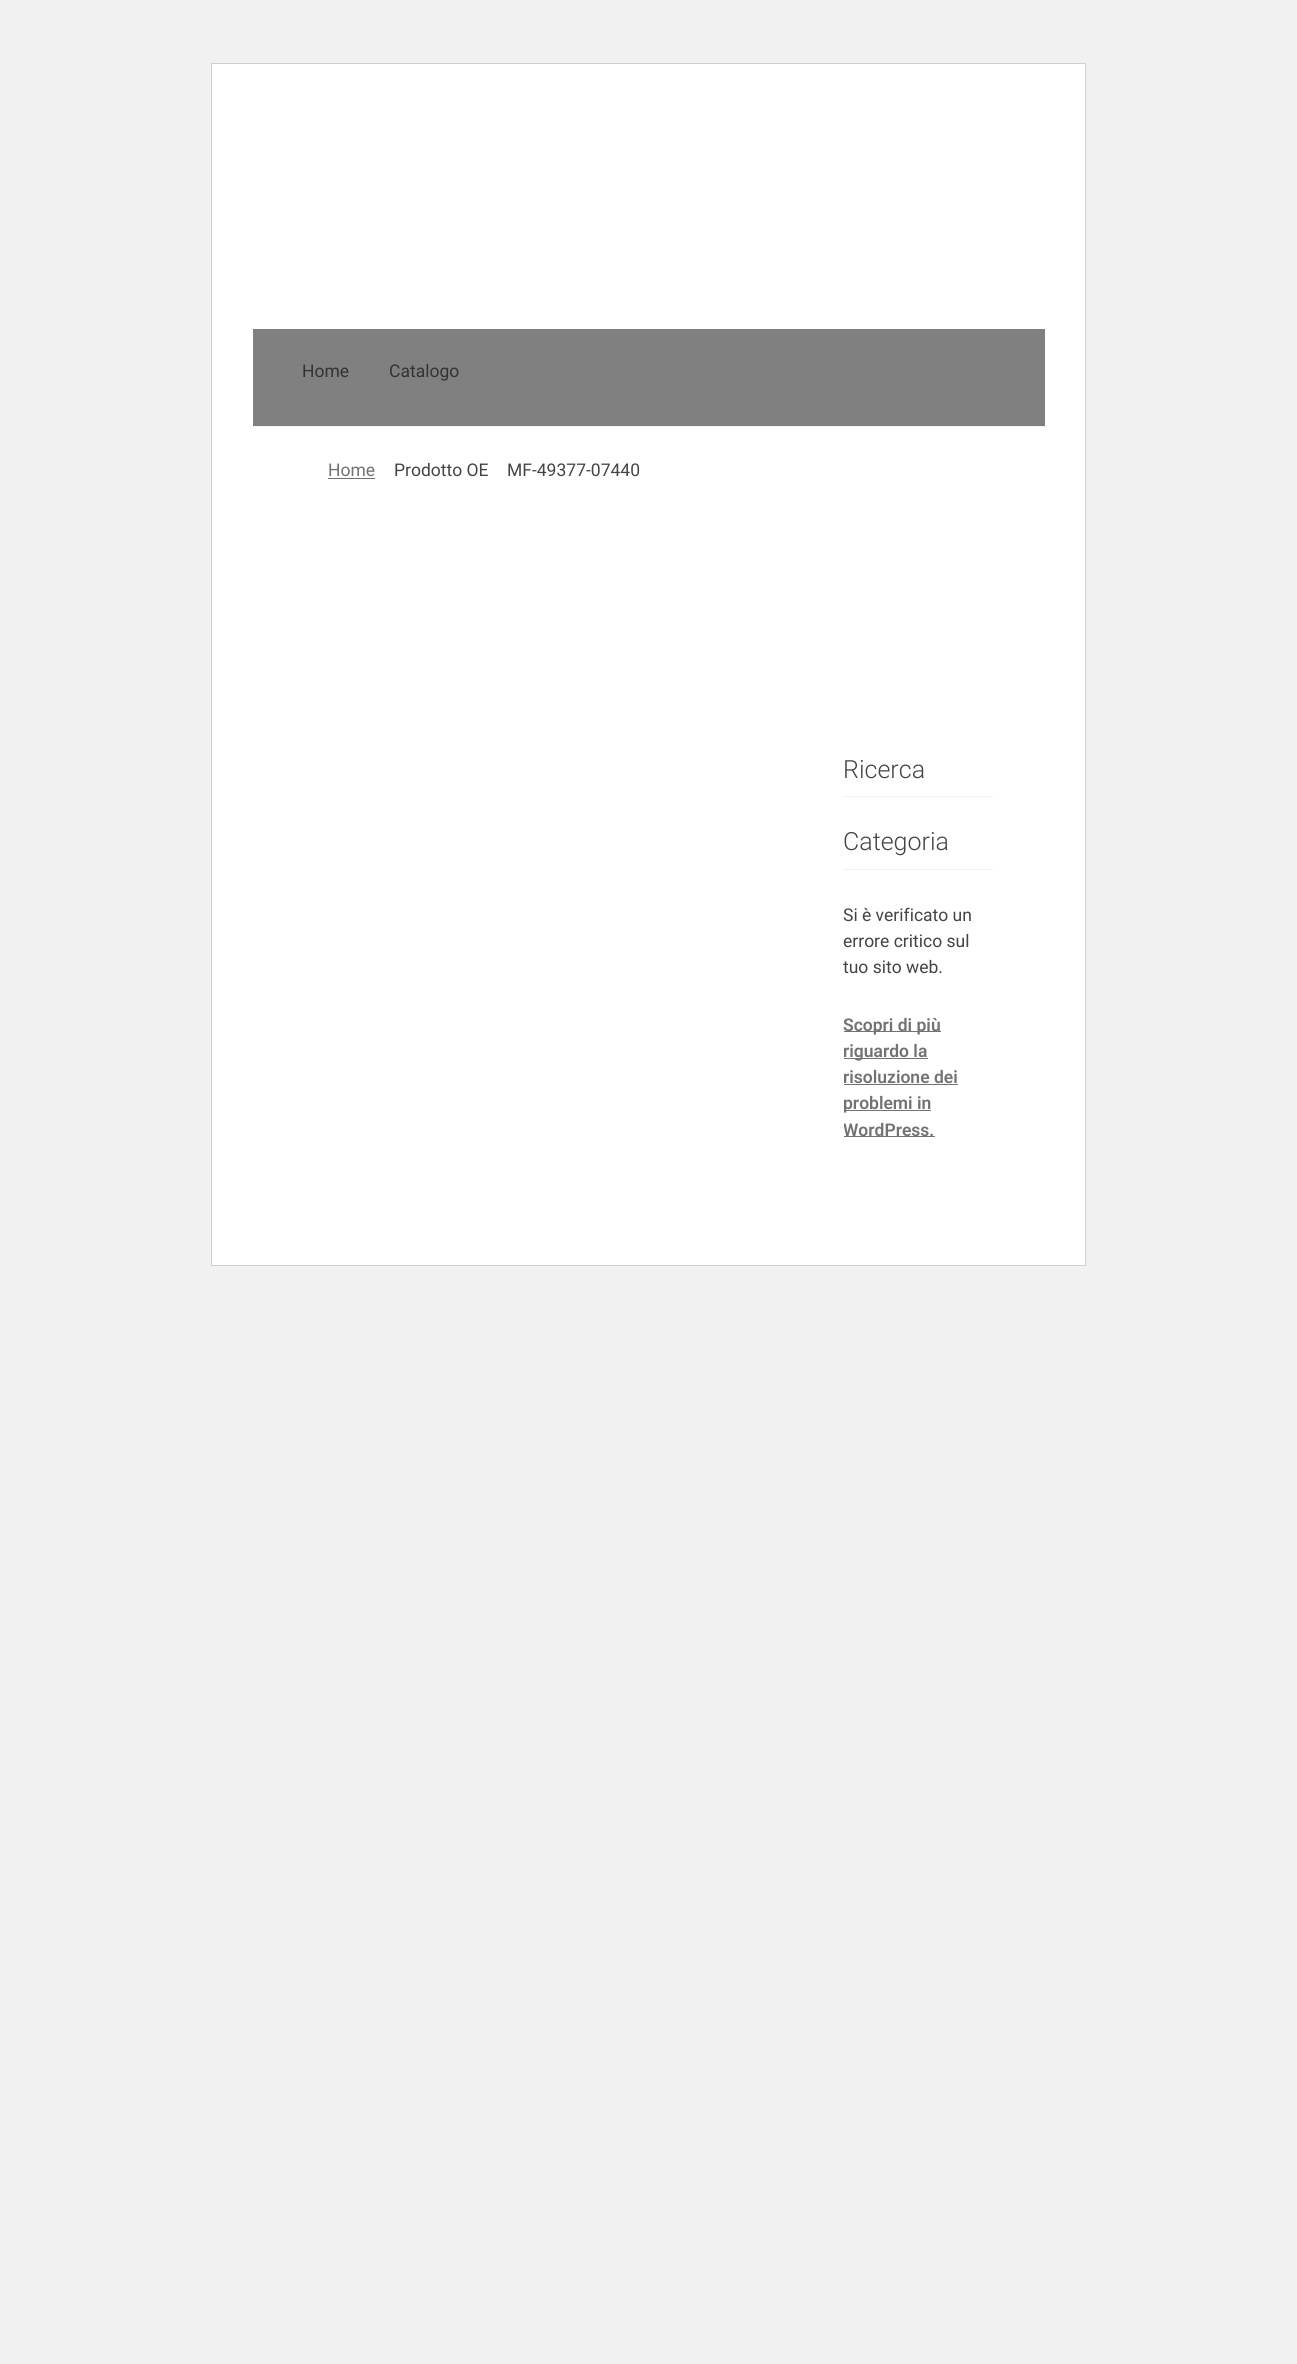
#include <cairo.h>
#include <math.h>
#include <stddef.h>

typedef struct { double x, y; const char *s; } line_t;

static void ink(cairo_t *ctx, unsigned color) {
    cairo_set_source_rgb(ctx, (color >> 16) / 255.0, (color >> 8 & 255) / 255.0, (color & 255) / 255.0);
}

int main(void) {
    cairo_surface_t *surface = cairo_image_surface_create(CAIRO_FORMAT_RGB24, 1297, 2364);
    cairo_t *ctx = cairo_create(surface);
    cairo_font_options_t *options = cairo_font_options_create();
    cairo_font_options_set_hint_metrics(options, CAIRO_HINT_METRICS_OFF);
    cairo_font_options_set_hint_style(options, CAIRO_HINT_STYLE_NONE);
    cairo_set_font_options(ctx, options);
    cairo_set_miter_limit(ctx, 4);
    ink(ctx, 0xF1F1F1);
    cairo_paint(ctx);
    ink(ctx, 0xFFFFFF);
    cairo_rectangle(ctx, 211.5, 63.5, 874, 1202);
    cairo_fill_preserve(ctx);
    ink(ctx, 0xCCD0D4);
    cairo_set_line_width(ctx, 1);
    cairo_stroke(ctx);
    ink(ctx, 0xF0F0F0);
    cairo_rectangle(ctx, 253, 426, 792, 1);
    cairo_fill(ctx);
    ink(ctx, 0x808080);
    cairo_rectangle(ctx, 253, 329, 792, 97);
    cairo_fill(ctx);
    cairo_select_font_face(ctx, "Roboto", CAIRO_FONT_SLANT_NORMAL, CAIRO_FONT_WEIGHT_NORMAL);
    cairo_set_font_size(ctx, 17.5);
    ink(ctx, 0x333333);
    cairo_move_to(ctx, 302, 377);
    cairo_show_text(ctx, "Home");
    cairo_move_to(ctx, 389, 377);
    cairo_show_text(ctx, "Catalogo");
    ink(ctx, 0x727272);
    cairo_move_to(ctx, 328, 476);
    cairo_show_text(ctx, "Home");
    cairo_rectangle(ctx, 328, 478, 47, 1);
    cairo_fill(ctx);
    ink(ctx, 0x444444);
    cairo_move_to(ctx, 394, 476);
    cairo_show_text(ctx, "Prodotto OE");
    cairo_move_to(ctx, 507, 476);
    cairo_show_text(ctx, "MF-49377-07440");
    ink(ctx, 0xF2F2F2);
    cairo_rectangle(ctx, 844, 796, 149, 1);
    cairo_fill(ctx);
    cairo_select_font_face(ctx, "Roboto Light", CAIRO_FONT_SLANT_NORMAL, CAIRO_FONT_WEIGHT_NORMAL);
    cairo_set_font_size(ctx, 25);
    ink(ctx, 0x444444);
    cairo_move_to(ctx, 843, 778);
    cairo_show_text(ctx, "Ricerca");
    ink(ctx, 0xF2F2F2);
    cairo_rectangle(ctx, 844, 869, 149, 1);
    cairo_fill(ctx);
    ink(ctx, 0x444444);
    cairo_move_to(ctx, 843, 850);
    cairo_show_text(ctx, "Categoria");
    cairo_select_font_face(ctx, "Roboto", CAIRO_FONT_SLANT_NORMAL, CAIRO_FONT_WEIGHT_NORMAL);
    cairo_set_font_size(ctx, 17.5);
    {
        static const line_t items[] = {
            {843, 921, "Si è verificato un"},
            {843, 947, "errore critico sul"},
            {843, 973, "tuo sito web."},
        };
        for (size_t i = 0; i < sizeof items / sizeof *items; i++) {
            cairo_move_to(ctx, items[i].x, items[i].y);
            cairo_show_text(ctx, items[i].s);
        }
    }
    ink(ctx, 0x727272);
    cairo_rectangle(ctx, 844, 1031, 97, 1);
    cairo_fill(ctx);
    cairo_select_font_face(ctx, "Roboto SemiBold", CAIRO_FONT_SLANT_NORMAL, CAIRO_FONT_WEIGHT_NORMAL);
    cairo_move_to(ctx, 843, 1031);
    cairo_show_text(ctx, "Scopri di più");
    cairo_rectangle(ctx, 844, 1058, 84, 1);
    cairo_fill(ctx);
    cairo_move_to(ctx, 843, 1057);
    cairo_show_text(ctx, "riguardo la");
    cairo_move_to(ctx, 843, 1083);
    cairo_show_text(ctx, "risoluzione dei");
    cairo_rectangle(ctx, 844, 1084, 114, 1);
    cairo_fill(ctx);
    cairo_rectangle(ctx, 844, 1110, 87, 1);
    cairo_fill(ctx);
    cairo_move_to(ctx, 843, 1109);
    cairo_show_text(ctx, "problemi in");
    cairo_rectangle(ctx, 844, 1136, 91, 1);
    cairo_fill(ctx);
    cairo_save(ctx);
    cairo_rectangle(ctx, 844, 823, 149, 345);
    cairo_clip(ctx);
    cairo_move_to(ctx, 843, 1136);
    cairo_show_text(ctx, "WordPress.");
    cairo_restore(ctx);
    cairo_surface_write_to_png(surface, "image.png");
    cairo_font_options_destroy(options);
    cairo_destroy(ctx);
    cairo_surface_destroy(surface);
    return 0;
}
